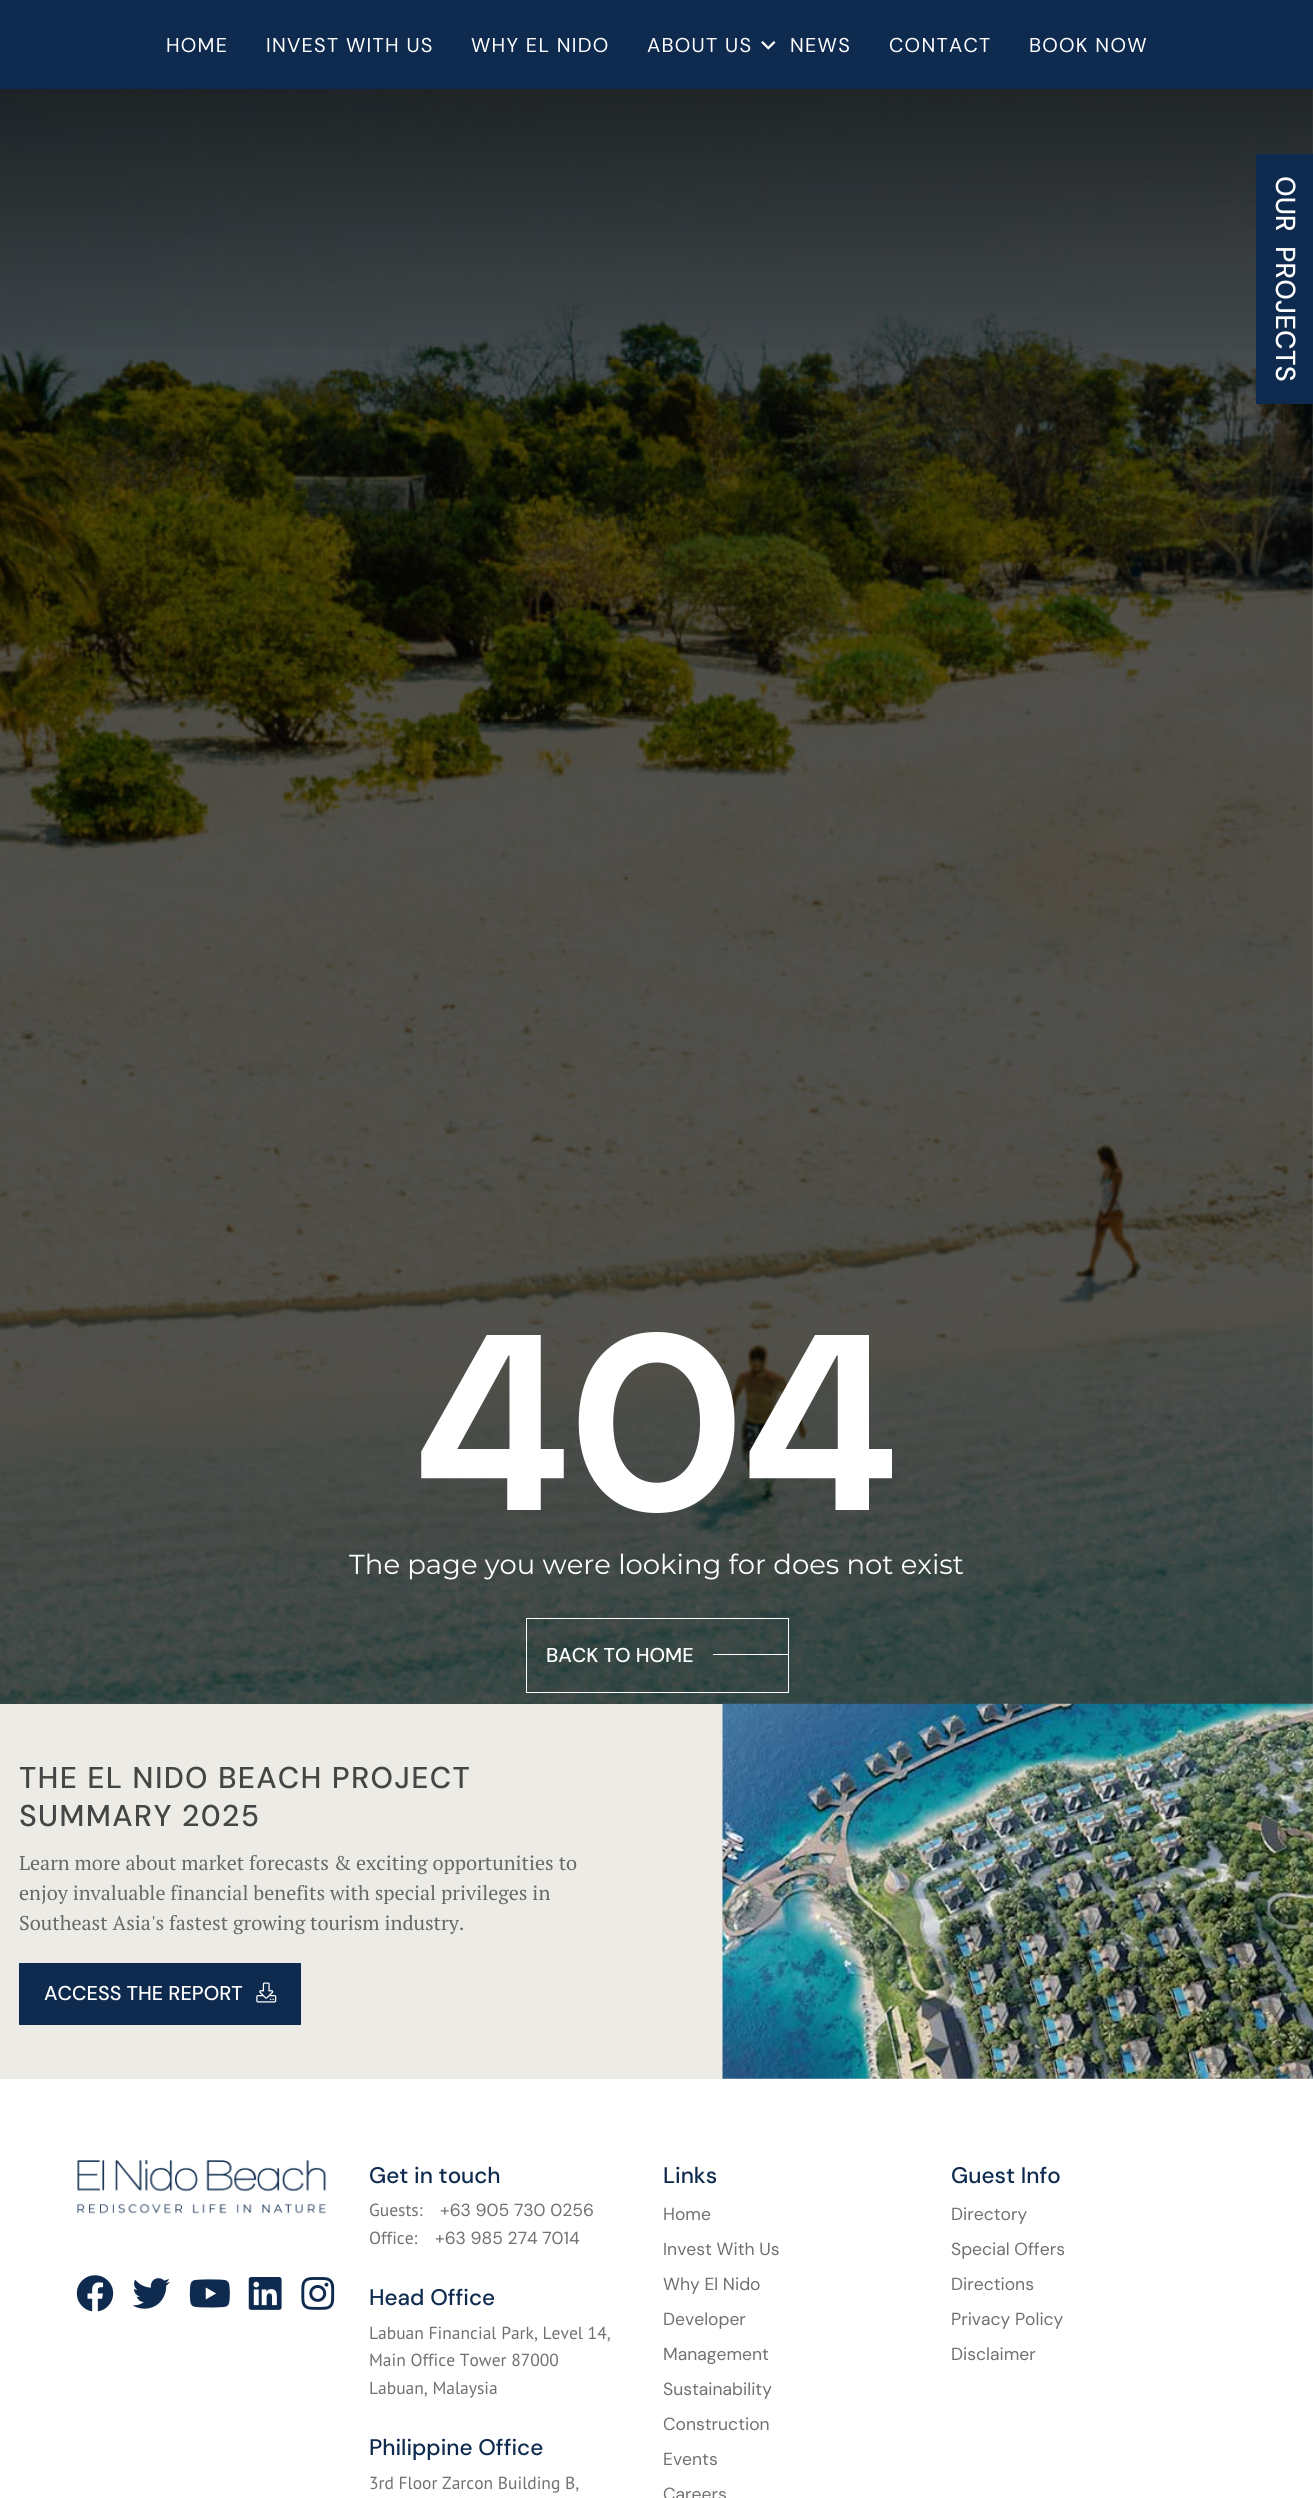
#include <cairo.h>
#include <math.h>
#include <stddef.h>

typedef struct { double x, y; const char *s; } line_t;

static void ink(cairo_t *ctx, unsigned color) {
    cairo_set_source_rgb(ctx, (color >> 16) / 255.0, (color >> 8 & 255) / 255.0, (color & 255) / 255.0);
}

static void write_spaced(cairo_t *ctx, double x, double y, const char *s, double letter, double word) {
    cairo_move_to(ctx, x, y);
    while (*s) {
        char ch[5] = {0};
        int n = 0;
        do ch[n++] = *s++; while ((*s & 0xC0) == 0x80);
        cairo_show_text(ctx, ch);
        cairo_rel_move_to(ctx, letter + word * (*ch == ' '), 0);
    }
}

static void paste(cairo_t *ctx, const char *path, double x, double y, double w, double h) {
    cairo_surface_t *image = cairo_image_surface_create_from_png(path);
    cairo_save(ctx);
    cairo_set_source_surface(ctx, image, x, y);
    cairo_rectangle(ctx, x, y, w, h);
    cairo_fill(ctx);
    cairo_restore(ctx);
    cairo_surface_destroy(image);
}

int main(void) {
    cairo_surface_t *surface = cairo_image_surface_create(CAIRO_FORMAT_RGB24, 1313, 2498);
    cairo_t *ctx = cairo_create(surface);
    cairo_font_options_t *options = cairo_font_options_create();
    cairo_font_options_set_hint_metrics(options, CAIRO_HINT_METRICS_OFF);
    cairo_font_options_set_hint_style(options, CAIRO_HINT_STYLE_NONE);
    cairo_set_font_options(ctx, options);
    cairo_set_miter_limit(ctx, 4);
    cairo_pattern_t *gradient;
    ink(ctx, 0xFFFFFF);
    cairo_paint(ctx);
    ink(ctx, 0x0E2A4E);
    cairo_rectangle(ctx, 0, 0, 1313, 89);
    cairo_fill(ctx);
    cairo_select_font_face(ctx, "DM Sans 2", CAIRO_FONT_SLANT_NORMAL, CAIRO_FONT_WEIGHT_NORMAL);
    cairo_set_font_size(ctx, 20);
    ink(ctx, 0xFFFFFF);
    {
        static const line_t items[] = {
            {166, 52, "HOME"},
            {266, 52, "INVEST WITH US"},
            {471, 52, "WHY EL NIDO"},
            {647, 52, "ABOUT US"},
        };
        for (size_t i = 0; i < sizeof items / sizeof *items; i++) {
            write_spaced(ctx, items[i].x, items[i].y, items[i].s, 1.25, 0);
        }
    }
    paste(ctx, "media/1.png", 761, 41, 15, 9);
    {
        static const line_t items[] = {
            {790, 52, "NEWS"},
            {889, 52, "CONTACT"},
            {1029, 52, "BOOK NOW"},
        };
        for (size_t i = 0; i < sizeof items / sizeof *items; i++) {
            write_spaced(ctx, items[i].x, items[i].y, items[i].s, 1.25, 0);
        }
    }
    paste(ctx, "media/2.png", 0, 89, 1313, 1615);
    gradient = cairo_pattern_create_linear(657, 0, 657, 430);
    cairo_pattern_add_color_stop_rgba(gradient, 0, 0, 0, 0, 0.66);
    cairo_pattern_add_color_stop_rgba(gradient, 0.85, 0, 0, 0, 0);
    cairo_set_source(ctx, gradient);
    cairo_pattern_destroy(gradient);
    cairo_rectangle(ctx, 0, 89, 1313, 260);
    cairo_fill(ctx);
    ink(ctx, 0x0E2A4E);
    cairo_rectangle(ctx, 1256, 154, 57, 250);
    cairo_fill(ctx);
    cairo_select_font_face(ctx, "DM Sans 2 Medium", CAIRO_FONT_SLANT_NORMAL, CAIRO_FONT_WEIGHT_NORMAL);
    cairo_set_font_size(ctx, 27.5);
    ink(ctx, 0xFFFFFF);
    cairo_save(ctx);
    cairo_translate(ctx, 1276, 176);
    cairo_rotate(ctx, 90 * M_PI / 180);
    cairo_move_to(ctx, 0, 0);
    cairo_show_text(ctx, "OUR  PROJECTS");
    cairo_restore(ctx);
    cairo_select_font_face(ctx, "DM Sans", CAIRO_FONT_SLANT_NORMAL, CAIRO_FONT_WEIGHT_BOLD);
    cairo_set_font_size(ctx, 250);
    cairo_move_to(ctx, 415, 1510);
    cairo_show_text(ctx, "404");
    cairo_select_font_face(ctx, "Montserrat", CAIRO_FONT_SLANT_NORMAL, CAIRO_FONT_WEIGHT_NORMAL);
    cairo_set_font_size(ctx, 27.5);
    cairo_move_to(ctx, 349, 1574);
    cairo_show_text(ctx, "The page you were looking for does not exist");
    cairo_rectangle(ctx, 526.5, 1618.5, 262, 74);
    cairo_set_line_width(ctx, 1);
    cairo_stroke(ctx);
    cairo_select_font_face(ctx, "DM Sans Medium", CAIRO_FONT_SLANT_NORMAL, CAIRO_FONT_WEIGHT_NORMAL);
    cairo_set_font_size(ctx, 20);
    cairo_move_to(ctx, 546, 1662);
    cairo_show_text(ctx, "BACK TO HOME");
    cairo_rectangle(ctx, 713, 1654, 75, 1);
    cairo_fill(ctx);
    ink(ctx, 0xEDEBE5);
    cairo_rectangle(ctx, 0, 1704, 1313, 375);
    cairo_fill(ctx);
    cairo_select_font_face(ctx, "DM Sans 2 Medium", CAIRO_FONT_SLANT_NORMAL, CAIRO_FONT_WEIGHT_NORMAL);
    cairo_set_font_size(ctx, 30);
    ink(ctx, 0x454545);
    write_spaced(ctx, 19, 1788, "THE EL NIDO BEACH PROJECT", 1.25, 0);
    write_spaced(ctx, 19, 1826, "SUMMARY 2025", 1.25, 0);
    cairo_select_font_face(ctx, "PT Serif", CAIRO_FONT_SLANT_NORMAL, CAIRO_FONT_WEIGHT_NORMAL);
    cairo_set_font_size(ctx, 20);
    ink(ctx, 0x686868);
    {
        static const line_t items[] = {
            {19, 1870, "Learn more about market forecasts & exciting opportunities to"},
            {19, 1900, "enjoy invaluable financial benefits with special privileges in"},
            {19, 1930, "Southeast Asia's fastest growing tourism industry."},
        };
        for (size_t i = 0; i < sizeof items / sizeof *items; i++) {
            cairo_move_to(ctx, items[i].x, items[i].y);
            cairo_show_text(ctx, items[i].s);
        }
    }
    ink(ctx, 0x0E2A4E);
    cairo_rectangle(ctx, 19, 1963, 282, 62);
    cairo_fill(ctx);
    cairo_select_font_face(ctx, "DM Sans Medium", CAIRO_FONT_SLANT_NORMAL, CAIRO_FONT_WEIGHT_NORMAL);
    ink(ctx, 0xFFFFFF);
    cairo_move_to(ctx, 44, 2000);
    cairo_show_text(ctx, "ACCESS THE REPORT");
    paste(ctx, "media/3.png", 256, 1982, 21, 21);
    paste(ctx, "media/4.png", 722, 1703, 591, 376);
    paste(ctx, "media/5.png", 77, 2160, 250, 54);
    paste(ctx, "media/6.png", 76, 2275, 38, 37);
    paste(ctx, "media/7.png", 132, 2278, 38, 31);
    paste(ctx, "media/8.png", 189, 2279, 41, 29);
    paste(ctx, "media/9.png", 248, 2277, 34, 33);
    paste(ctx, "media/10.png", 301, 2277, 34, 33);
    cairo_select_font_face(ctx, "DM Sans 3 Medium", CAIRO_FONT_SLANT_NORMAL, CAIRO_FONT_WEIGHT_NORMAL);
    cairo_set_font_size(ctx, 22.5);
    ink(ctx, 0x0E2A4E);
    cairo_move_to(ctx, 369, 2183);
    cairo_show_text(ctx, "Get in touch");
    cairo_select_font_face(ctx, "PT Sans", CAIRO_FONT_SLANT_NORMAL, CAIRO_FONT_WEIGHT_NORMAL);
    cairo_set_font_size(ctx, 17.5);
    ink(ctx, 0x707070);
    cairo_move_to(ctx, 369, 2216);
    cairo_show_text(ctx, "Guests:");
    cairo_select_font_face(ctx, "DM Sans", CAIRO_FONT_SLANT_NORMAL, CAIRO_FONT_WEIGHT_NORMAL);
    cairo_move_to(ctx, 440, 2216);
    cairo_show_text(ctx, "+63 905 730 0256");
    cairo_select_font_face(ctx, "PT Sans", CAIRO_FONT_SLANT_NORMAL, CAIRO_FONT_WEIGHT_NORMAL);
    cairo_move_to(ctx, 369, 2244);
    cairo_show_text(ctx, "Office:");
    cairo_select_font_face(ctx, "DM Sans", CAIRO_FONT_SLANT_NORMAL, CAIRO_FONT_WEIGHT_NORMAL);
    cairo_move_to(ctx, 435, 2244);
    cairo_show_text(ctx, "+63 985 274 7014");
    cairo_select_font_face(ctx, "DM Sans 3 Medium", CAIRO_FONT_SLANT_NORMAL, CAIRO_FONT_WEIGHT_NORMAL);
    cairo_set_font_size(ctx, 22.5);
    ink(ctx, 0x0E2A4E);
    cairo_move_to(ctx, 369, 2305);
    cairo_show_text(ctx, "Head Office");
    cairo_select_font_face(ctx, "PT Sans", CAIRO_FONT_SLANT_NORMAL, CAIRO_FONT_WEIGHT_NORMAL);
    cairo_set_font_size(ctx, 17.5);
    ink(ctx, 0x707070);
    {
        static const line_t items[] = {
            {369, 2339, "Labuan Financial Park, Level 14,"},
            {369, 2366, "Main Office Tower 87000"},
            {369, 2394, "Labuan, Malaysia"},
        };
        for (size_t i = 0; i < sizeof items / sizeof *items; i++) {
            cairo_move_to(ctx, items[i].x, items[i].y);
            cairo_show_text(ctx, items[i].s);
        }
    }
    cairo_select_font_face(ctx, "DM Sans 3 Medium", CAIRO_FONT_SLANT_NORMAL, CAIRO_FONT_WEIGHT_NORMAL);
    cairo_set_font_size(ctx, 22.5);
    ink(ctx, 0x0E2A4E);
    cairo_move_to(ctx, 369, 2455);
    cairo_show_text(ctx, "Philippine Office");
    cairo_select_font_face(ctx, "PT Sans", CAIRO_FONT_SLANT_NORMAL, CAIRO_FONT_WEIGHT_NORMAL);
    cairo_set_font_size(ctx, 17.5);
    ink(ctx, 0x707070);
    cairo_move_to(ctx, 369, 2489);
    cairo_show_text(ctx, "3rd Floor Zarcon Building B,");
    cairo_select_font_face(ctx, "DM Sans 3 Medium", CAIRO_FONT_SLANT_NORMAL, CAIRO_FONT_WEIGHT_NORMAL);
    cairo_set_font_size(ctx, 22.5);
    ink(ctx, 0x0E2A4E);
    cairo_move_to(ctx, 663, 2183);
    cairo_show_text(ctx, "Links");
    cairo_select_font_face(ctx, "DM Sans", CAIRO_FONT_SLANT_NORMAL, CAIRO_FONT_WEIGHT_NORMAL);
    cairo_set_font_size(ctx, 17.5);
    ink(ctx, 0x707070);
    {
        static const line_t items[] = {
            {663, 2220, "Home"},
            {663, 2255, "Invest With Us"},
            {663, 2290, "Why El Nido"},
            {663, 2325, "Developer"},
            {663, 2360, "Management"},
            {663, 2395, "Sustainability"},
            {663, 2430, "Construction"},
            {663, 2465, "Events"},
            {663, 2500, "Careers"},
        };
        for (size_t i = 0; i < sizeof items / sizeof *items; i++) {
            cairo_move_to(ctx, items[i].x, items[i].y);
            cairo_show_text(ctx, items[i].s);
        }
    }
    cairo_select_font_face(ctx, "DM Sans 3 Medium", CAIRO_FONT_SLANT_NORMAL, CAIRO_FONT_WEIGHT_NORMAL);
    cairo_set_font_size(ctx, 22.5);
    ink(ctx, 0x0E2A4E);
    cairo_move_to(ctx, 951, 2183);
    cairo_show_text(ctx, "Guest Info");
    cairo_select_font_face(ctx, "DM Sans", CAIRO_FONT_SLANT_NORMAL, CAIRO_FONT_WEIGHT_NORMAL);
    cairo_set_font_size(ctx, 17.5);
    ink(ctx, 0x707070);
    {
        static const line_t items[] = {
            {951, 2220, "Directory"},
            {951, 2255, "Special Offers"},
            {951, 2290, "Directions"},
            {951, 2325, "Privacy Policy"},
            {951, 2360, "Disclaimer"},
        };
        for (size_t i = 0; i < sizeof items / sizeof *items; i++) {
            cairo_move_to(ctx, items[i].x, items[i].y);
            cairo_show_text(ctx, items[i].s);
        }
    }
    cairo_surface_write_to_png(surface, "image.png");
    cairo_font_options_destroy(options);
    cairo_destroy(ctx);
    cairo_surface_destroy(surface);
    return 0;
}
